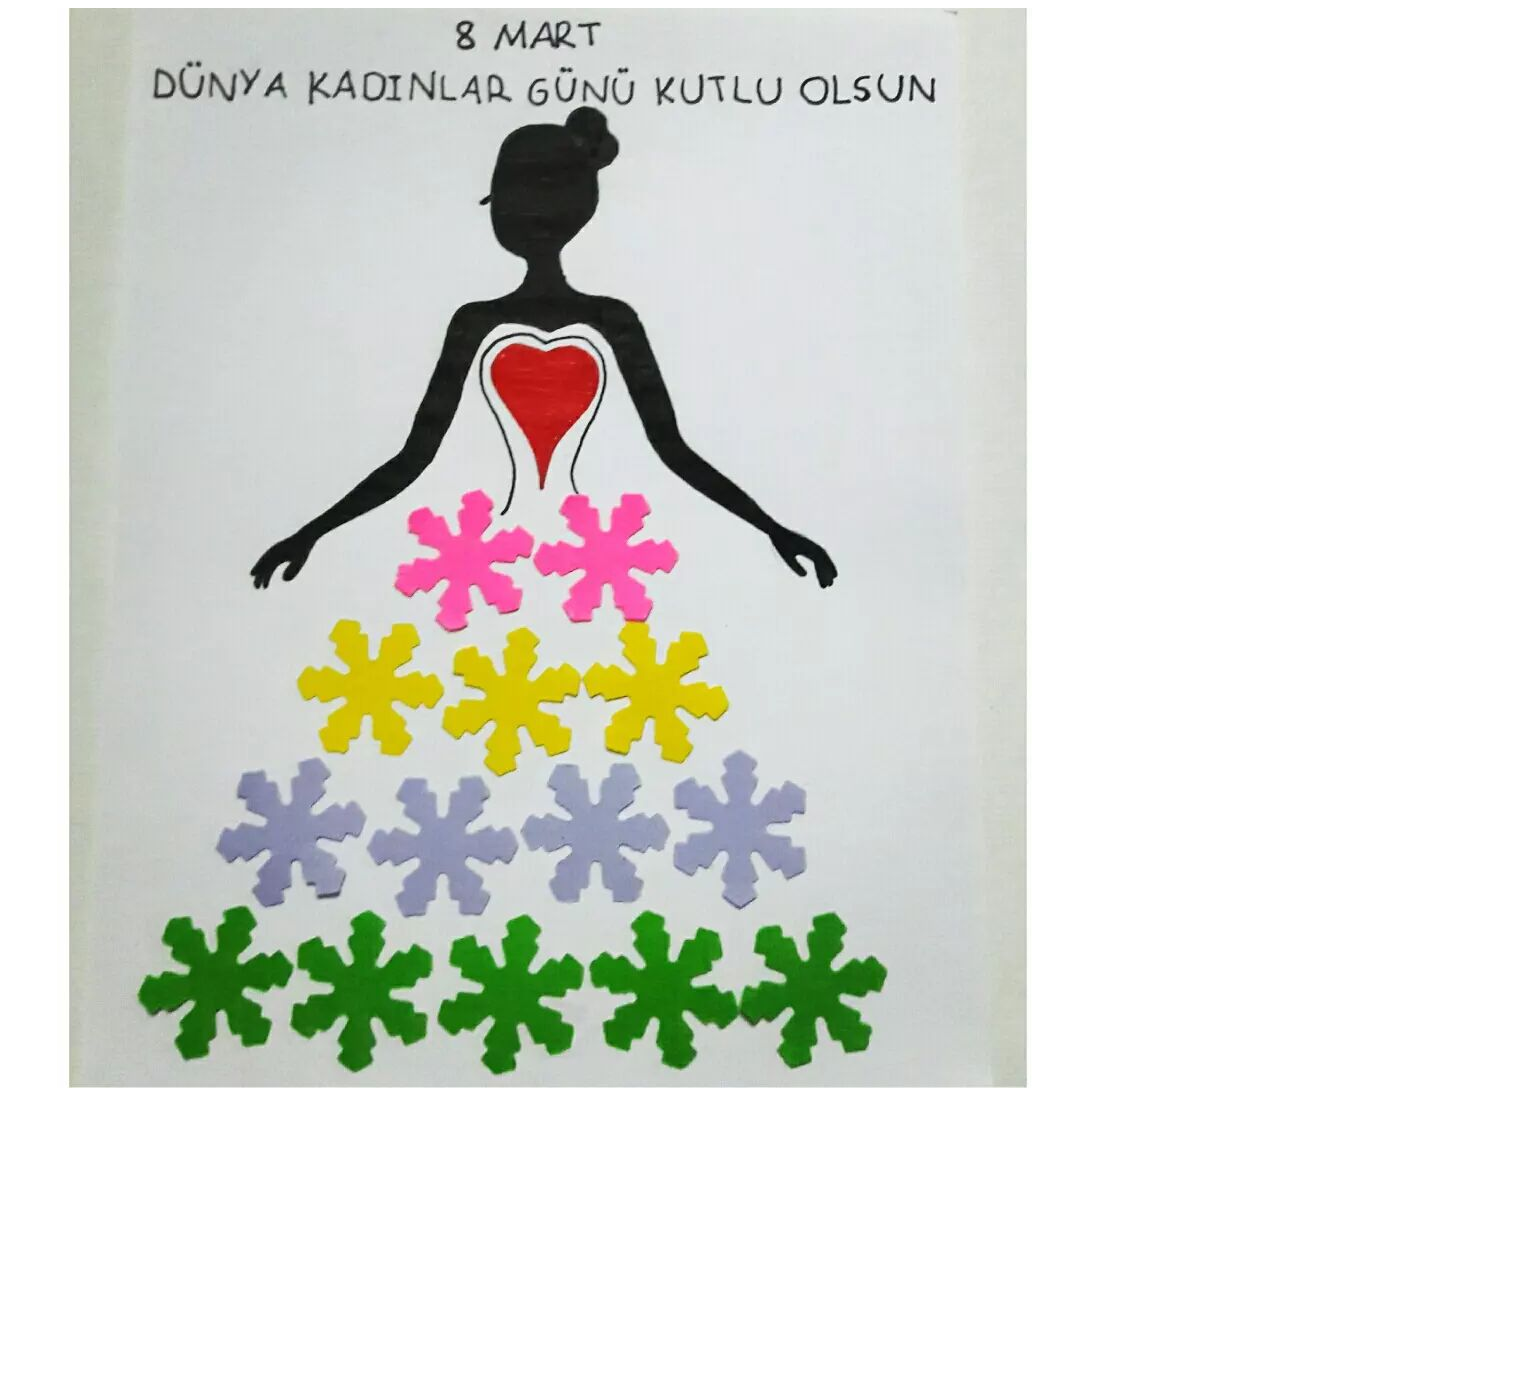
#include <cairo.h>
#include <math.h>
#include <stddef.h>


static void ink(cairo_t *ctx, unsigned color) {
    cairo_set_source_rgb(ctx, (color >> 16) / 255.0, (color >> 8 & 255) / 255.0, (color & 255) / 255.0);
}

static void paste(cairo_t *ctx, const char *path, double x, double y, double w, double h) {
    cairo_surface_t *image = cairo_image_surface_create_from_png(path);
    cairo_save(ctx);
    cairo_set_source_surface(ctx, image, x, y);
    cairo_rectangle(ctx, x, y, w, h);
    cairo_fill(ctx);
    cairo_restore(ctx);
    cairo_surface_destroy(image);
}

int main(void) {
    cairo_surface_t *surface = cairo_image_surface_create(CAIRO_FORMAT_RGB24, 1522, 1392);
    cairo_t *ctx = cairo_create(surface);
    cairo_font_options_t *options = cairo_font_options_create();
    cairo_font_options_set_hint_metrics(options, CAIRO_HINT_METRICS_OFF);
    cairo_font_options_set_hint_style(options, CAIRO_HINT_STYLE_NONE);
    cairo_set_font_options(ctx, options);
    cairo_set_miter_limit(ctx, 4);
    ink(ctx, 0xFFFFFF);
    cairo_paint(ctx);
    paste(ctx, "media/1.png", 57, 8, 975, 1080);
    cairo_surface_write_to_png(surface, "image.png");
    cairo_font_options_destroy(options);
    cairo_destroy(ctx);
    cairo_surface_destroy(surface);
    return 0;
}
